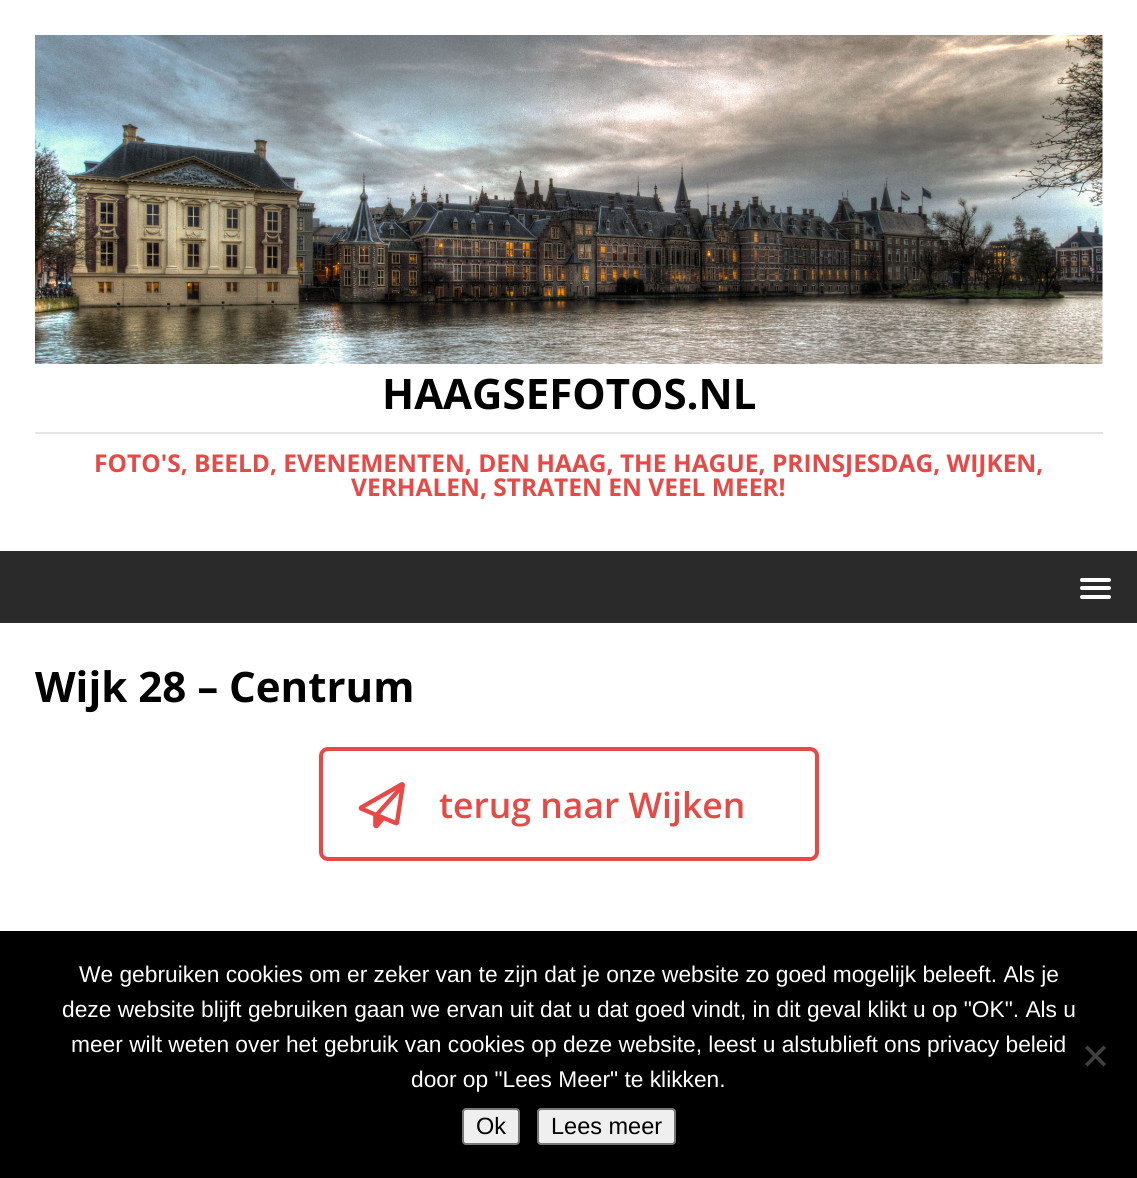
#include <cairo.h>
#include <math.h>
#include <stddef.h>

typedef struct { double x, y; const char *s; } line_t;

static void ink(cairo_t *ctx, unsigned color) {
    cairo_set_source_rgb(ctx, (color >> 16) / 255.0, (color >> 8 & 255) / 255.0, (color & 255) / 255.0);
}

static void round_path(cairo_t *ctx, double x, double y, double w, double h, double r) {
    cairo_new_sub_path(ctx);
    cairo_arc(ctx, x + w - r, y + h - r, r, 0, M_PI / 2);
    cairo_arc(ctx, x + r, y + h - r, r, M_PI / 2, M_PI);
    cairo_arc(ctx, x + r, y + r, r, M_PI, 1.5 * M_PI);
    cairo_arc(ctx, x + w - r, y + r, r, 1.5 * M_PI, 2 * M_PI);
    cairo_close_path(ctx);
}

static void paste(cairo_t *ctx, const char *path, double x, double y, double w, double h) {
    cairo_surface_t *image = cairo_image_surface_create_from_png(path);
    cairo_save(ctx);
    cairo_set_source_surface(ctx, image, x, y);
    cairo_rectangle(ctx, x, y, w, h);
    cairo_fill(ctx);
    cairo_restore(ctx);
    cairo_surface_destroy(image);
}

int main(void) {
    cairo_surface_t *surface = cairo_image_surface_create(CAIRO_FORMAT_RGB24, 1137, 1178);
    cairo_t *ctx = cairo_create(surface);
    cairo_font_options_t *options = cairo_font_options_create();
    cairo_font_options_set_hint_metrics(options, CAIRO_HINT_METRICS_OFF);
    cairo_font_options_set_hint_style(options, CAIRO_HINT_STYLE_NONE);
    cairo_set_font_options(ctx, options);
    cairo_set_miter_limit(ctx, 4);
    ink(ctx, 0xFFFFFF);
    cairo_paint(ctx);
    paste(ctx, "media/1.png", 35, 35, 1068, 329);
    cairo_select_font_face(ctx, "Open Sans", CAIRO_FONT_SLANT_NORMAL, CAIRO_FONT_WEIGHT_BOLD);
    cairo_set_font_size(ctx, 42);
    ink(ctx, 0x000000);
    cairo_move_to(ctx, 382, 409);
    cairo_show_text(ctx, "HAAGSEFOTOS.NL");
    ink(ctx, 0xE5E5E5);
    cairo_rectangle(ctx, 35, 432, 1068, 2);
    cairo_fill(ctx);
    cairo_set_font_size(ctx, 24.5);
    ink(ctx, 0xE64946);
    cairo_move_to(ctx, 94, 472);
    cairo_show_text(ctx, "FOTO'S, BEELD, EVENEMENTEN, DEN HAAG, THE HAGUE, PRINSJESDAG, WIJKEN,");
    cairo_move_to(ctx, 351, 496);
    cairo_show_text(ctx, "VERHALEN, STRATEN EN VEEL MEER!");
    ink(ctx, 0x2A2A2A);
    cairo_rectangle(ctx, 0, 551, 1137, 72);
    cairo_fill(ctx);
    ink(ctx, 0xFFFFFF);
    round_path(ctx, 1080, 578, 31, 4, 2);
    cairo_fill(ctx);
    round_path(ctx, 1080, 586, 31, 4, 2);
    cairo_fill(ctx);
    round_path(ctx, 1080, 595, 31, 4, 2);
    cairo_fill(ctx);
    cairo_set_font_size(ctx, 42);
    ink(ctx, 0x000000);
    cairo_move_to(ctx, 35, 702);
    cairo_show_text(ctx, "Wijk 28 – Centrum");
    round_path(ctx, 321, 749, 496, 110, 7);
    ink(ctx, 0xE64946);
    cairo_set_line_width(ctx, 4);
    cairo_stroke(ctx);
    paste(ctx, "media/2.png", 358, 782, 47, 47);
    cairo_select_font_face(ctx, "Open Sans SemiBold", CAIRO_FONT_SLANT_NORMAL, CAIRO_FONT_WEIGHT_NORMAL);
    cairo_set_font_size(ctx, 35.5);
    cairo_move_to(ctx, 439, 818);
    cairo_show_text(ctx, "terug naar Wijken");
    ink(ctx, 0x000000);
    cairo_rectangle(ctx, 0, 931, 1137, 247);
    cairo_fill(ctx);
    cairo_select_font_face(ctx, "Liberation Sans", CAIRO_FONT_SLANT_NORMAL, CAIRO_FONT_WEIGHT_NORMAL);
    cairo_set_font_size(ctx, 22.75);
    ink(ctx, 0xFFFFFF);
    {
        static const line_t items[] = {
            {79, 982, "We gebruiken cookies om er zeker van te zijn dat je onze website zo goed mogelijk beleeft. Als je"},
            {62, 1017, "deze website blijft gebruiken gaan we ervan uit dat u dat goed vindt, in dit geval klikt u op \"OK\". Als u"},
            {71, 1052, "meer wilt weten over het gebruik van cookies op deze website, leest u alstublieft ons privacy beleid"},
            {411, 1087, "door op \"Lees Meer\" te klikken."},
        };
        for (size_t i = 0; i < sizeof items / sizeof *items; i++) {
            cairo_move_to(ctx, items[i].x, items[i].y);
            cairo_show_text(ctx, items[i].s);
        }
    }
    ink(ctx, 0x404040);
    cairo_new_path(ctx);
    cairo_move_to(ctx, 1103.5, 1045.5);
    cairo_line_to(ctx, 1106, 1048);
    cairo_line_to(ctx, 1087.5, 1066.5);
    cairo_line_to(ctx, 1085, 1064);
    cairo_close_path(ctx);
    cairo_fill(ctx);
    cairo_new_path(ctx);
    cairo_move_to(ctx, 1085, 1048);
    cairo_line_to(ctx, 1087.5, 1045.5);
    cairo_line_to(ctx, 1106, 1064);
    cairo_line_to(ctx, 1103.5, 1066.5);
    cairo_close_path(ctx);
    cairo_fill(ctx);
    ink(ctx, 0xEFEFEF);
    round_path(ctx, 463, 1109, 56, 35, 3);
    cairo_fill_preserve(ctx);
    ink(ctx, 0x767676);
    cairo_set_line_width(ctx, 2);
    cairo_stroke(ctx);
    cairo_set_font_size(ctx, 23.5);
    ink(ctx, 0x000000);
    cairo_move_to(ctx, 476, 1134);
    cairo_show_text(ctx, "Ok");
    ink(ctx, 0xEFEFEF);
    round_path(ctx, 538, 1109, 137, 35, 3);
    cairo_fill_preserve(ctx);
    ink(ctx, 0x767676);
    cairo_stroke(ctx);
    ink(ctx, 0x000000);
    cairo_move_to(ctx, 551, 1134);
    cairo_show_text(ctx, "Lees meer");
    cairo_surface_write_to_png(surface, "image.png");
    cairo_font_options_destroy(options);
    cairo_destroy(ctx);
    cairo_surface_destroy(surface);
    return 0;
}
